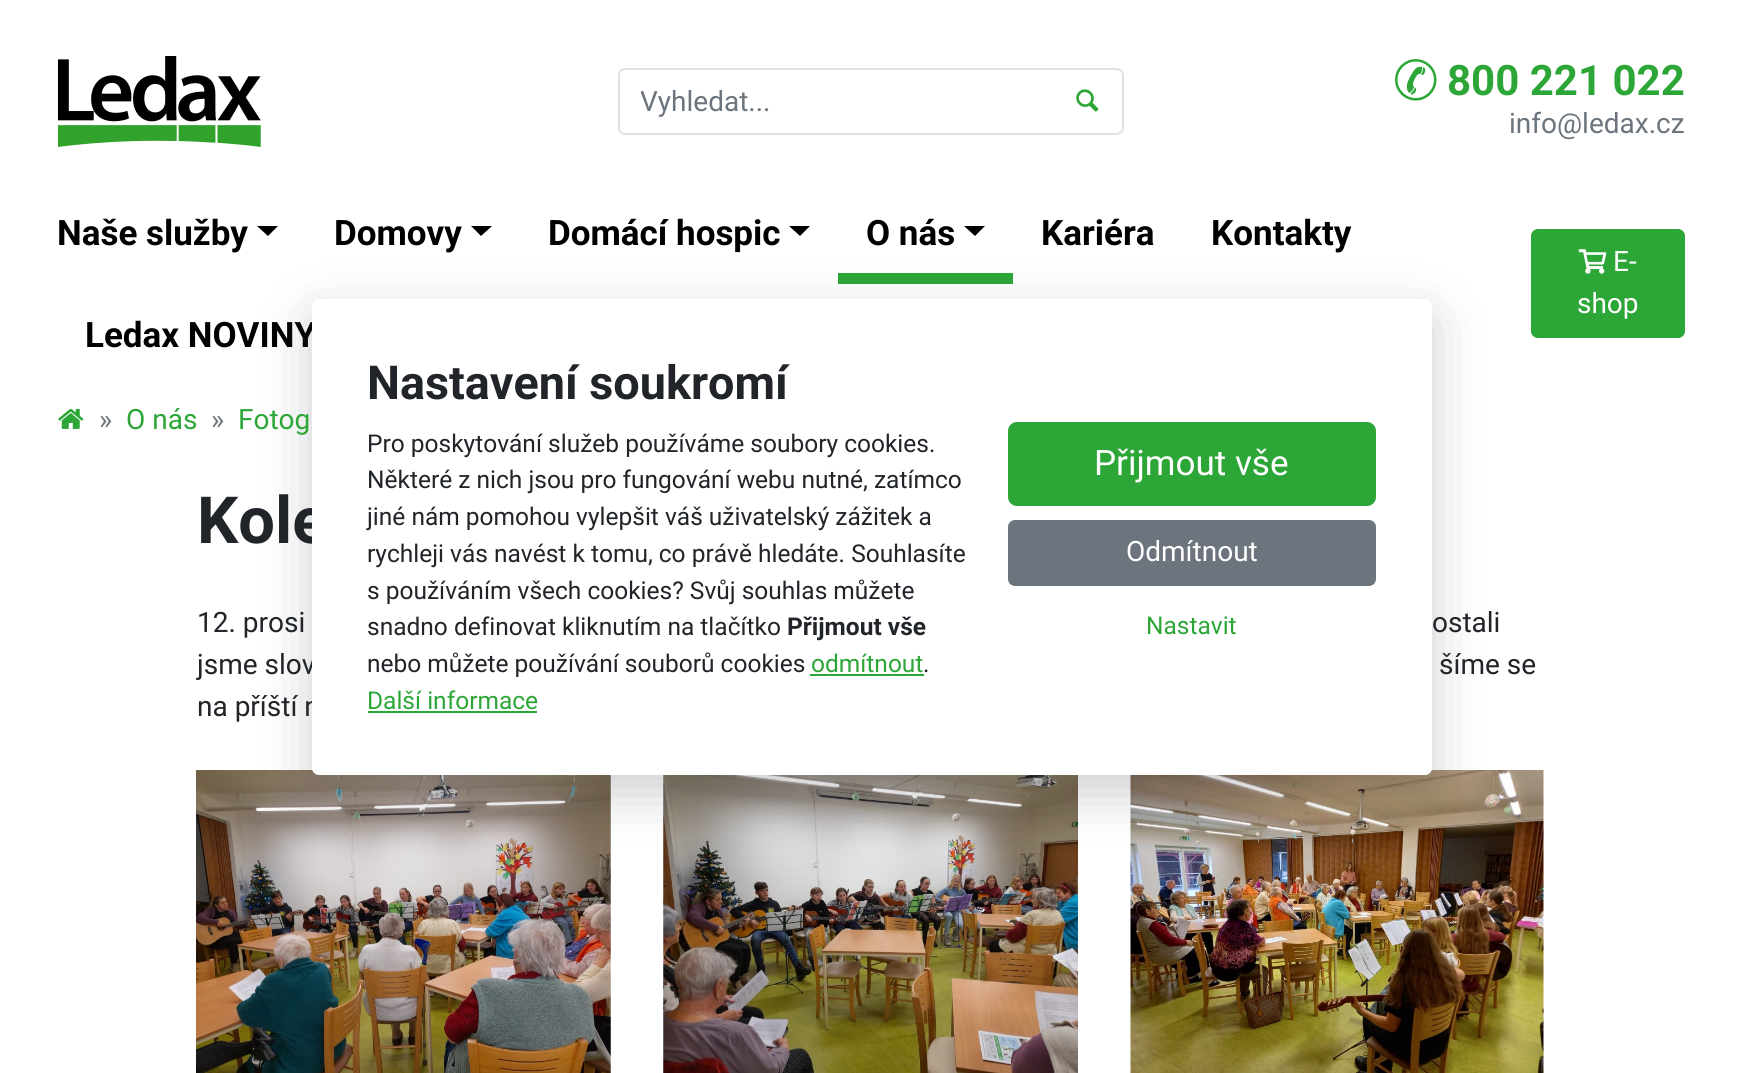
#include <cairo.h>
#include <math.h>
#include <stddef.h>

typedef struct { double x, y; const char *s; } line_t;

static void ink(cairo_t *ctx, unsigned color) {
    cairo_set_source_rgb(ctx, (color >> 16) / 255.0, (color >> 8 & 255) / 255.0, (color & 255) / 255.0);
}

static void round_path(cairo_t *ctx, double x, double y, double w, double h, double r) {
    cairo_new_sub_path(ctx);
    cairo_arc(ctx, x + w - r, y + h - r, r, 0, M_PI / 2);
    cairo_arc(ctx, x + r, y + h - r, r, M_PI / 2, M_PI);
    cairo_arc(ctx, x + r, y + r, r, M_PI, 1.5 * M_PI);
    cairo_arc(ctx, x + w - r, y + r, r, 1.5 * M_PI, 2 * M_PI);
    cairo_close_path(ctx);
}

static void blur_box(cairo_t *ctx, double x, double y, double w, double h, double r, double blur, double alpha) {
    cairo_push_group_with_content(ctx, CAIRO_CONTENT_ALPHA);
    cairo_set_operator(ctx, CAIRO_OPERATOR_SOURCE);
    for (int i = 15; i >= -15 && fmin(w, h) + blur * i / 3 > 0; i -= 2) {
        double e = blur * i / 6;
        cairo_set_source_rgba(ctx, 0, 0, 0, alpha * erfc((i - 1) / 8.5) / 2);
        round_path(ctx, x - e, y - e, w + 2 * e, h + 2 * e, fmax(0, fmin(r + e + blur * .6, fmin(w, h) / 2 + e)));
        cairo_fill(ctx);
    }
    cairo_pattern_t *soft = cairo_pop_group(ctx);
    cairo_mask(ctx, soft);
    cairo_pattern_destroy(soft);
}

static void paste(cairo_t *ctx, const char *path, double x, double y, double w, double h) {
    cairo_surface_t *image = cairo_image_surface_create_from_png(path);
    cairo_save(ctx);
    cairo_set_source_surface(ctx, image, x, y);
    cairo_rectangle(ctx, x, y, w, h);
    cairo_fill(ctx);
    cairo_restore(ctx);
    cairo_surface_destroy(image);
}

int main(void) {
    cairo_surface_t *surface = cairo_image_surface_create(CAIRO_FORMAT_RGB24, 1740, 1073);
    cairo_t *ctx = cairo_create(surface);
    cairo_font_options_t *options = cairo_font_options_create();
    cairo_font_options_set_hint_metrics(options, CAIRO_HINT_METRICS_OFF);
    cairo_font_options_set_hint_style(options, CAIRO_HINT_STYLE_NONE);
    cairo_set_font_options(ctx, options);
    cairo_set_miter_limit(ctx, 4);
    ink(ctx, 0xFFFFFF);
    cairo_paint(ctx);
    paste(ctx, "media/1.png", 58, 56, 203, 91);
    ink(ctx, 0xDEE2E6);
    cairo_set_fill_rule(ctx, CAIRO_FILL_RULE_EVEN_ODD);
    cairo_new_path(ctx);
    cairo_move_to(ctx, 625, 68);
    cairo_line_to(ctx, 1054, 68);
    cairo_line_to(ctx, 1054, 135);
    cairo_line_to(ctx, 625, 135);
    cairo_curve_to(ctx, 621, 135, 618, 132, 618, 128);
    cairo_line_to(ctx, 618, 75);
    cairo_curve_to(ctx, 618, 71, 621, 68, 625, 68);
    cairo_close_path(ctx);
    cairo_move_to(ctx, 625, 70);
    cairo_line_to(ctx, 1054, 70);
    cairo_line_to(ctx, 1054, 133);
    cairo_line_to(ctx, 625, 133);
    cairo_curve_to(ctx, 622, 133, 620, 131, 620, 128);
    cairo_line_to(ctx, 620, 75);
    cairo_curve_to(ctx, 620, 72, 622, 70, 625, 70);
    cairo_close_path(ctx);
    cairo_fill(ctx);
    cairo_save(ctx);
    cairo_set_fill_rule(ctx, CAIRO_FILL_RULE_WINDING);
    cairo_rectangle(ctx, 641, 86, 392, 33);
    cairo_clip(ctx);
    cairo_select_font_face(ctx, "Roboto", CAIRO_FONT_SLANT_NORMAL, CAIRO_FONT_WEIGHT_NORMAL);
    cairo_set_font_size(ctx, 28);
    ink(ctx, 0x6C757D);
    cairo_move_to(ctx, 640, 111);
    cairo_show_text(ctx, "Vyhledat...");
    cairo_restore(ctx);
    cairo_new_path(ctx);
    cairo_move_to(ctx, 1052, 68);
    cairo_line_to(ctx, 1116, 68);
    cairo_curve_to(ctx, 1120, 68, 1124, 71, 1124, 75);
    cairo_line_to(ctx, 1124, 128);
    cairo_curve_to(ctx, 1124, 132, 1120, 135, 1116, 135);
    cairo_line_to(ctx, 1052, 135);
    cairo_close_path(ctx);
    cairo_move_to(ctx, 1052, 70);
    cairo_line_to(ctx, 1116, 70);
    cairo_curve_to(ctx, 1119, 70, 1122, 72, 1122, 75);
    cairo_line_to(ctx, 1122, 128);
    cairo_curve_to(ctx, 1122, 131, 1119, 133, 1116, 133);
    cairo_line_to(ctx, 1052, 133);
    cairo_close_path(ctx);
    cairo_fill(ctx);
    paste(ctx, "media/2.png", 1076, 89, 23, 23);
    paste(ctx, "media/3.png", 1395, 59, 42, 42);
    cairo_select_font_face(ctx, "Roboto", CAIRO_FONT_SLANT_NORMAL, CAIRO_FONT_WEIGHT_BOLD);
    cairo_set_font_size(ctx, 42);
    ink(ctx, 0x2CA637);
    cairo_move_to(ctx, 1447, 95);
    cairo_show_text(ctx, "800 221 022");
    cairo_select_font_face(ctx, "Roboto", CAIRO_FONT_SLANT_NORMAL, CAIRO_FONT_WEIGHT_NORMAL);
    cairo_set_font_size(ctx, 28);
    ink(ctx, 0x6C757D);
    cairo_move_to(ctx, 1509, 133);
    cairo_show_text(ctx, "info@ledax.cz");
    cairo_select_font_face(ctx, "Roboto", CAIRO_FONT_SLANT_NORMAL, CAIRO_FONT_WEIGHT_BOLD);
    cairo_set_font_size(ctx, 35);
    ink(ctx, 0x000000);
    cairo_move_to(ctx, 57, 245);
    cairo_show_text(ctx, "Naše služby");
    cairo_set_fill_rule(ctx, CAIRO_FILL_RULE_WINDING);
    cairo_new_path(ctx);
    cairo_move_to(ctx, 257, 226);
    cairo_line_to(ctx, 278, 226);
    cairo_line_to(ctx, 268, 236);
    cairo_close_path(ctx);
    cairo_fill(ctx);
    cairo_move_to(ctx, 334, 245);
    cairo_show_text(ctx, "Domovy");
    cairo_new_path(ctx);
    cairo_move_to(ctx, 471, 226);
    cairo_line_to(ctx, 492, 226);
    cairo_line_to(ctx, 481, 236);
    cairo_close_path(ctx);
    cairo_fill(ctx);
    cairo_move_to(ctx, 548, 245);
    cairo_show_text(ctx, "Domácí hospic");
    cairo_new_path(ctx);
    cairo_move_to(ctx, 789, 226);
    cairo_line_to(ctx, 810, 226);
    cairo_line_to(ctx, 800, 236);
    cairo_close_path(ctx);
    cairo_fill(ctx);
    ink(ctx, 0x2CA637);
    cairo_rectangle(ctx, 838, 273, 175, 11);
    cairo_fill(ctx);
    ink(ctx, 0x000000);
    cairo_move_to(ctx, 866, 245);
    cairo_show_text(ctx, "O nás");
    cairo_new_path(ctx);
    cairo_move_to(ctx, 964, 226);
    cairo_line_to(ctx, 985, 226);
    cairo_line_to(ctx, 975, 236);
    cairo_close_path(ctx);
    cairo_fill(ctx);
    {
        static const line_t items[] = {
            {1041, 245, "Kariéra"},
            {1211, 245, "Kontakty"},
            {85, 347, "Ledax NOVINY"},
        };
        for (size_t i = 0; i < sizeof items / sizeof *items; i++) {
            cairo_move_to(ctx, items[i].x, items[i].y);
            cairo_show_text(ctx, items[i].s);
        }
    }
    ink(ctx, 0x2CA637);
    round_path(ctx, 1532, 230, 152, 107, 6);
    cairo_fill_preserve(ctx);
    cairo_stroke(ctx);
    paste(ctx, "media/4.png", 1578, 249, 29, 25);
    cairo_select_font_face(ctx, "Roboto", CAIRO_FONT_SLANT_NORMAL, CAIRO_FONT_WEIGHT_NORMAL);
    cairo_set_font_size(ctx, 28);
    ink(ctx, 0xFFFFFF);
    cairo_move_to(ctx, 1613, 271);
    cairo_show_text(ctx, "E-");
    cairo_move_to(ctx, 1577, 313);
    cairo_show_text(ctx, "shop");
    paste(ctx, "media/6.png", 196, 770, 415, 303);
    paste(ctx, "media/7.png", 663, 775, 415, 298);
    paste(ctx, "media/8.png", 1130, 770, 414, 303);
    ink(ctx, 0x343A40);
    blur_box(ctx, 312, 317, 1120, 476, 7, 26, 0.25);
    cairo_select_font_face(ctx, "Roboto", CAIRO_FONT_SLANT_NORMAL, CAIRO_FONT_WEIGHT_BOLD);
    cairo_set_font_size(ctx, 65);
    ink(ctx, 0x212529);
    cairo_move_to(ctx, 197, 543);
    cairo_show_text(ctx, "Kole");
    cairo_select_font_face(ctx, "Roboto", CAIRO_FONT_SLANT_NORMAL, CAIRO_FONT_WEIGHT_NORMAL);
    cairo_set_font_size(ctx, 28);
    cairo_move_to(ctx, 197, 674);
    cairo_show_text(ctx, "jsme slov");
    cairo_move_to(ctx, 197, 716);
    cairo_show_text(ctx, "na příští n");
    ink(ctx, 0xFFFFFF);
    round_path(ctx, 312, 299, 1120, 476, 7);
    cairo_fill(ctx);
    cairo_select_font_face(ctx, "Roboto", CAIRO_FONT_SLANT_NORMAL, CAIRO_FONT_WEIGHT_BOLD);
    cairo_set_font_size(ctx, 46.75);
    ink(ctx, 0x212529);
    cairo_move_to(ctx, 367, 399);
    cairo_show_text(ctx, "Nastavení soukromí");
    cairo_select_font_face(ctx, "Roboto", CAIRO_FONT_SLANT_NORMAL, CAIRO_FONT_WEIGHT_NORMAL);
    cairo_set_font_size(ctx, 24.5);
    {
        static const line_t items[] = {
            {367, 452, "Pro poskytování služeb používáme soubory cookies."},
            {367, 488, "Některé z nich jsou pro fungování webu nutné, zatímco"},
            {367, 525, "jiné nám pomohou vylepšit váš uživatelský zážitek a"},
            {367, 562, "rychleji vás navést k tomu, co právě hledáte. Souhlasíte"},
            {367, 599, "s používáním všech cookies? Svůj souhlas můžete"},
            {367, 635, "snadno definovat kliknutím na tlačítko"},
        };
        for (size_t i = 0; i < sizeof items / sizeof *items; i++) {
            cairo_move_to(ctx, items[i].x, items[i].y);
            cairo_show_text(ctx, items[i].s);
        }
    }
    cairo_select_font_face(ctx, "Roboto", CAIRO_FONT_SLANT_NORMAL, CAIRO_FONT_WEIGHT_BOLD);
    cairo_move_to(ctx, 787, 635);
    cairo_show_text(ctx, "Přijmout vše");
    cairo_select_font_face(ctx, "Roboto", CAIRO_FONT_SLANT_NORMAL, CAIRO_FONT_WEIGHT_NORMAL);
    cairo_move_to(ctx, 367, 672);
    cairo_show_text(ctx, "nebo můžete používání souborů cookies");
    ink(ctx, 0x2CA637);
    cairo_move_to(ctx, 811, 672);
    cairo_show_text(ctx, "odmítnout");
    cairo_rectangle(ctx, 810, 674, 114, 2);
    cairo_fill(ctx);
    ink(ctx, 0x212529);
    cairo_move_to(ctx, 923, 672);
    cairo_show_text(ctx, ".");
    ink(ctx, 0x2CA637);
    cairo_move_to(ctx, 367, 709);
    cairo_show_text(ctx, "Další informace");
    cairo_rectangle(ctx, 368, 711, 169, 2);
    cairo_fill(ctx);
    round_path(ctx, 1009, 423, 366, 82, 8);
    cairo_fill_preserve(ctx);
    cairo_stroke(ctx);
    cairo_set_font_size(ctx, 35);
    ink(ctx, 0xFFFFFF);
    cairo_move_to(ctx, 1094, 475);
    cairo_show_text(ctx, "Přijmout vše");
    ink(ctx, 0x6C757D);
    round_path(ctx, 1009, 521, 366, 64, 6);
    cairo_fill_preserve(ctx);
    cairo_stroke(ctx);
    cairo_set_font_size(ctx, 28);
    ink(ctx, 0xFFFFFF);
    cairo_move_to(ctx, 1126, 561);
    cairo_show_text(ctx, "Odmítnout");
    cairo_set_font_size(ctx, 24.5);
    ink(ctx, 0x2CA637);
    cairo_move_to(ctx, 1146, 634);
    cairo_show_text(ctx, "Nastavit");
    paste(ctx, "media/5.png", 58, 408, 26, 21);
    cairo_set_font_size(ctx, 28);
    ink(ctx, 0x6C757D);
    cairo_move_to(ctx, 99, 429);
    cairo_show_text(ctx, "»");
    ink(ctx, 0x2CA637);
    cairo_move_to(ctx, 126, 429);
    cairo_show_text(ctx, "O nás");
    ink(ctx, 0x6C757D);
    cairo_move_to(ctx, 211, 429);
    cairo_show_text(ctx, "»");
    ink(ctx, 0x2CA637);
    cairo_move_to(ctx, 238, 429);
    cairo_show_text(ctx, "Fotog");
    ink(ctx, 0x212529);
    {
        static const line_t items[] = {
            {197, 632, "12. prosi"},
            {1432, 632, "ostali"},
            {1439, 674, "šíme se"},
        };
        for (size_t i = 0; i < sizeof items / sizeof *items; i++) {
            cairo_move_to(ctx, items[i].x, items[i].y);
            cairo_show_text(ctx, items[i].s);
        }
    }
    cairo_surface_write_to_png(surface, "image.png");
    cairo_font_options_destroy(options);
    cairo_destroy(ctx);
    cairo_surface_destroy(surface);
    return 0;
}
